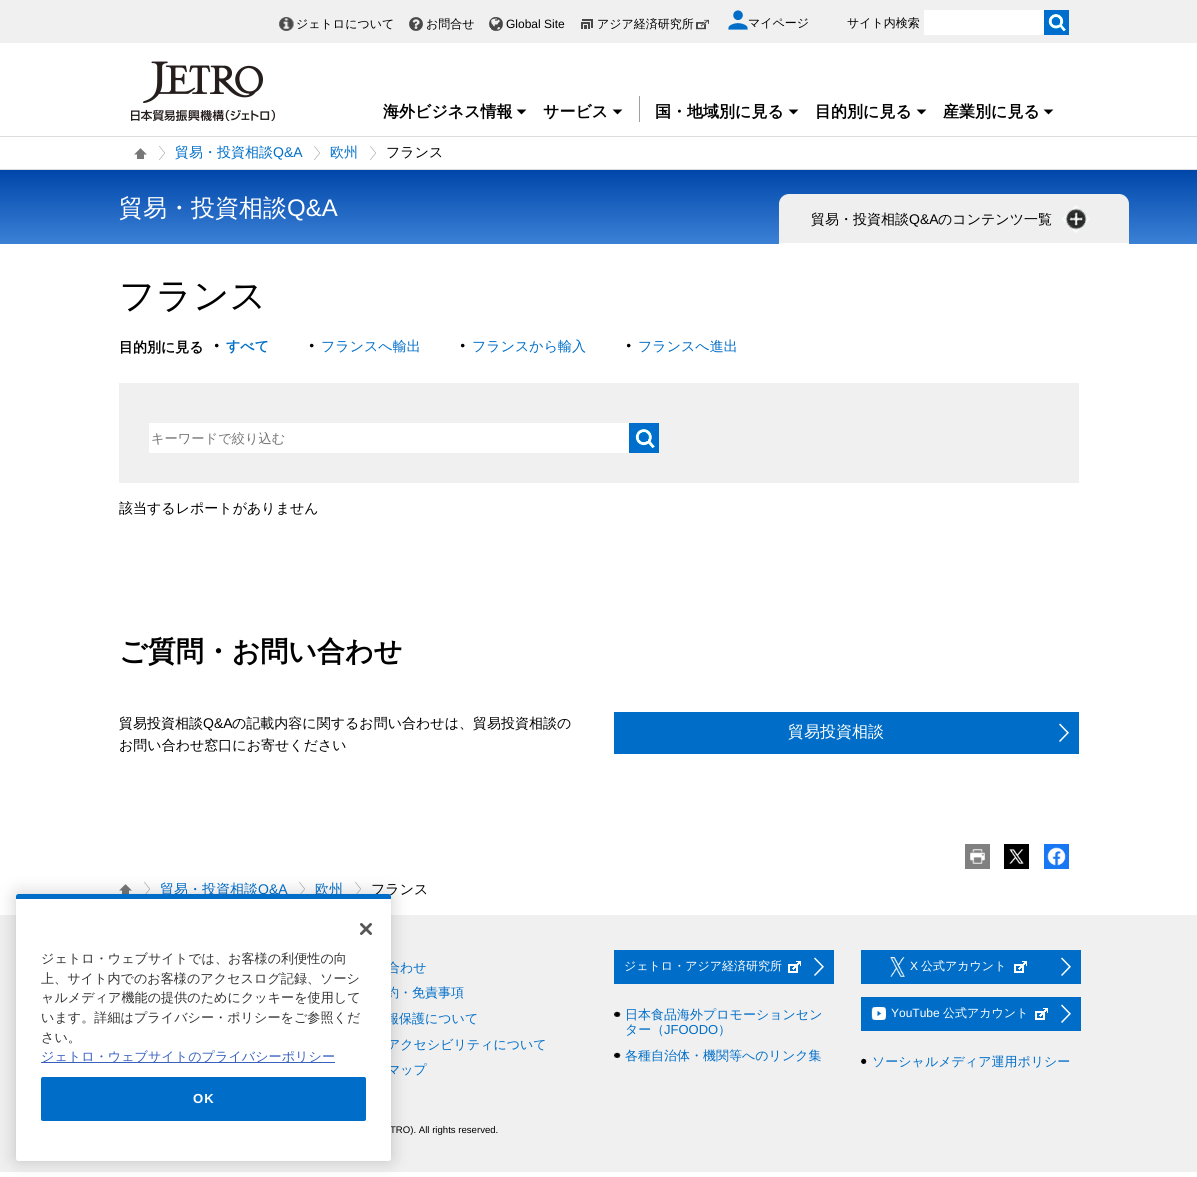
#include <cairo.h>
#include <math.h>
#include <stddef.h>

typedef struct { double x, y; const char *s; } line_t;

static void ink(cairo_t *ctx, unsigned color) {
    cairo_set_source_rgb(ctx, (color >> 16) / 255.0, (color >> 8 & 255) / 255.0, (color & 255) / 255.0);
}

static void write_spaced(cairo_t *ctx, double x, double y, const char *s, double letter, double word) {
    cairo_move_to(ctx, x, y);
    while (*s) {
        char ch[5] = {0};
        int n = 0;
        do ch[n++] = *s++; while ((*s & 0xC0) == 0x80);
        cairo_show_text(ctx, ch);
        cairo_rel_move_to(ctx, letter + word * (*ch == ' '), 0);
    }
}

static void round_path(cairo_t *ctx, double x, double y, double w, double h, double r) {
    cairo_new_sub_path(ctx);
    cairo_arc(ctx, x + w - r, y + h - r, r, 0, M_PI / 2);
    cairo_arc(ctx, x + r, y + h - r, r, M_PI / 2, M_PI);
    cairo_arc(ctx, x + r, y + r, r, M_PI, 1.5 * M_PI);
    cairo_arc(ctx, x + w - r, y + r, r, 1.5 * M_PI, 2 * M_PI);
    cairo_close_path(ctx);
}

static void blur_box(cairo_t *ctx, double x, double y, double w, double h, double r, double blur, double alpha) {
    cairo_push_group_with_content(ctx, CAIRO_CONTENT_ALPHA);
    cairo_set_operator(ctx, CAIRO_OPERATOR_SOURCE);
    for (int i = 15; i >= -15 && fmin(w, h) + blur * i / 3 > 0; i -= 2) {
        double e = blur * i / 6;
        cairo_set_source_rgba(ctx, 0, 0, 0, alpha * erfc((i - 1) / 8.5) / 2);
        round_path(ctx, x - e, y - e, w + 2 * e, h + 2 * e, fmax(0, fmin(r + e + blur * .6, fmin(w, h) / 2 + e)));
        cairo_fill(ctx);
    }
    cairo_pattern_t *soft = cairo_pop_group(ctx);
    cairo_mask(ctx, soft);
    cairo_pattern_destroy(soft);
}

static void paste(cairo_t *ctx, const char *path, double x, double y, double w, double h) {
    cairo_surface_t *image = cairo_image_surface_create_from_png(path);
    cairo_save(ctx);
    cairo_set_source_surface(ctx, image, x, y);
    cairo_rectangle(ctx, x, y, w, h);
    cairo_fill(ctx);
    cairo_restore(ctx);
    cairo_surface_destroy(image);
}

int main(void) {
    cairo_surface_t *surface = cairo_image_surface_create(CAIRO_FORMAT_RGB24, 1197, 1177);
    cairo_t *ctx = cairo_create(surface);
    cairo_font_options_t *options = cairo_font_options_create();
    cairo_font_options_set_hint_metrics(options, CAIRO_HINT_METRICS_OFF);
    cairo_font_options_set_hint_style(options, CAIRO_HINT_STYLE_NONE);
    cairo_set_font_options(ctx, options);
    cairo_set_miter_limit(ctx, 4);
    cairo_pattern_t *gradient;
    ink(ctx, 0xFFFFFF);
    cairo_paint(ctx);
    ink(ctx, 0xF0F0F0);
    cairo_rectangle(ctx, 0, 0, 1197, 43);
    cairo_fill(ctx);
    paste(ctx, "media/1.png", 279, 17, 15, 14);
    cairo_select_font_face(ctx, "WenQuanYi Zen Hei Medium", CAIRO_FONT_SLANT_NORMAL, CAIRO_FONT_WEIGHT_NORMAL);
    cairo_set_font_size(ctx, 12);
    ink(ctx, 0x000000);
    cairo_move_to(ctx, 296, 28);
    cairo_show_text(ctx, "ジェトロについて");
    paste(ctx, "media/2.png", 409, 17, 14, 14);
    cairo_move_to(ctx, 426, 28);
    cairo_show_text(ctx, "お問合せ");
    paste(ctx, "media/3.png", 489, 17, 14, 14);
    cairo_select_font_face(ctx, "Liberation Sans", CAIRO_FONT_SLANT_NORMAL, CAIRO_FONT_WEIGHT_NORMAL);
    cairo_move_to(ctx, 506, 28);
    cairo_show_text(ctx, "Global Site");
    paste(ctx, "media/4.png", 581, 19, 12, 10);
    cairo_select_font_face(ctx, "WenQuanYi Zen Hei Medium", CAIRO_FONT_SLANT_NORMAL, CAIRO_FONT_WEIGHT_NORMAL);
    cairo_move_to(ctx, 597, 28);
    cairo_show_text(ctx, "アジア経済研究所");
    paste(ctx, "media/5.png", 696, 19, 13, 11);
    paste(ctx, "media/6.png", 728, 10, 20, 20);
    cairo_move_to(ctx, 748, 27);
    cairo_show_text(ctx, "マイページ");
    cairo_move_to(ctx, 847, 27);
    cairo_show_text(ctx, "サイト内検索");
    ink(ctx, 0xFFFFFF);
    cairo_rectangle(ctx, 924, 10, 120, 25);
    cairo_fill(ctx);
    paste(ctx, "media/7.png", 1044, 10, 25, 25);
    paste(ctx, "media/8.png", 131, 61, 144, 60);
    cairo_select_font_face(ctx, "WenQuanYi Zen Hei", CAIRO_FONT_SLANT_NORMAL, CAIRO_FONT_WEIGHT_BOLD);
    cairo_set_font_size(ctx, 16);
    ink(ctx, 0x000000);
    cairo_move_to(ctx, 383, 117);
    cairo_show_text(ctx, "海外ビジネス情報");
    paste(ctx, "media/9.png", 516, 109, 11, 6);
    ink(ctx, 0x9F9F9F);
    cairo_rectangle(ctx, 639, 96, 1, 26);
    cairo_fill(ctx);
    ink(ctx, 0x000000);
    cairo_move_to(ctx, 543, 117);
    cairo_show_text(ctx, "サービス");
    paste(ctx, "media/9.png", 612, 109, 11, 6);
    cairo_move_to(ctx, 655, 117);
    cairo_show_text(ctx, "国・地域別に見る");
    paste(ctx, "media/9.png", 788, 109, 11, 6);
    cairo_move_to(ctx, 815, 117);
    cairo_show_text(ctx, "目的別に見る");
    paste(ctx, "media/9.png", 916, 109, 11, 6);
    cairo_move_to(ctx, 943, 117);
    cairo_show_text(ctx, "産業別に見る");
    paste(ctx, "media/9.png", 1043, 109, 11, 6);
    ink(ctx, 0xDCDCDC);
    cairo_rectangle(ctx, 0, 136, 1197, 1);
    cairo_fill(ctx);
    cairo_rectangle(ctx, 0, 169, 1197, 1);
    cairo_fill(ctx);
    paste(ctx, "media/10.png", 159, 146, 6, 14);
    paste(ctx, "media/11.png", 134, 148, 13, 11);
    paste(ctx, "media/10.png", 314, 146, 6, 14);
    cairo_select_font_face(ctx, "WenQuanYi Zen Hei Medium", CAIRO_FONT_SLANT_NORMAL, CAIRO_FONT_WEIGHT_NORMAL);
    cairo_set_font_size(ctx, 14);
    ink(ctx, 0x006EC8);
    cairo_move_to(ctx, 175, 157);
    cairo_show_text(ctx, "貿易・投資相談");
    cairo_select_font_face(ctx, "Liberation Sans", CAIRO_FONT_SLANT_NORMAL, CAIRO_FONT_WEIGHT_NORMAL);
    cairo_move_to(ctx, 273, 157);
    cairo_show_text(ctx, "Q&A");
    paste(ctx, "media/10.png", 370, 146, 6, 14);
    cairo_select_font_face(ctx, "WenQuanYi Zen Hei Medium", CAIRO_FONT_SLANT_NORMAL, CAIRO_FONT_WEIGHT_NORMAL);
    cairo_move_to(ctx, 330, 157);
    cairo_show_text(ctx, "欧州");
    ink(ctx, 0x000000);
    cairo_move_to(ctx, 386, 157);
    cairo_show_text(ctx, "フランス");
    gradient = cairo_pattern_create_linear(599, 170, 599, 244);
    cairo_pattern_add_color_stop_rgba(gradient, 0, 0, 0.275, 0.667, 1);
    cairo_pattern_add_color_stop_rgba(gradient, 1, 0.231, 0.506, 0.839, 1);
    cairo_set_source(ctx, gradient);
    cairo_pattern_destroy(gradient);
    cairo_rectangle(ctx, 0, 170, 1197, 74);
    cairo_fill(ctx);
    cairo_set_font_size(ctx, 24);
    ink(ctx, 0xFFFFFF);
    cairo_move_to(ctx, 119, 216);
    cairo_show_text(ctx, "貿易・投資相談");
    cairo_select_font_face(ctx, "Liberation Sans", CAIRO_FONT_SLANT_NORMAL, CAIRO_FONT_WEIGHT_NORMAL);
    cairo_move_to(ctx, 287, 216);
    cairo_show_text(ctx, "Q&A");
    ink(ctx, 0xF0EFF0);
    cairo_new_path(ctx);
    cairo_move_to(ctx, 789, 194);
    cairo_line_to(ctx, 1119, 194);
    cairo_curve_to(ctx, 1124.5, 194, 1129, 198.5, 1129, 204);
    cairo_line_to(ctx, 1129, 244);
    cairo_line_to(ctx, 779, 244);
    cairo_line_to(ctx, 779, 204);
    cairo_curve_to(ctx, 779, 198.5, 783.5, 194, 789, 194);
    cairo_close_path(ctx);
    cairo_fill(ctx);
    ink(ctx, 0xFFFFFF);
    cairo_rectangle(ctx, 779, 243, 350, 1);
    cairo_fill(ctx);
    cairo_select_font_face(ctx, "WenQuanYi Zen Hei Medium", CAIRO_FONT_SLANT_NORMAL, CAIRO_FONT_WEIGHT_NORMAL);
    cairo_set_font_size(ctx, 14);
    ink(ctx, 0x000000);
    cairo_move_to(ctx, 811, 224);
    cairo_show_text(ctx, "貿易・投資相談");
    cairo_select_font_face(ctx, "Liberation Sans", CAIRO_FONT_SLANT_NORMAL, CAIRO_FONT_WEIGHT_NORMAL);
    cairo_move_to(ctx, 909, 224);
    cairo_show_text(ctx, "Q&A");
    cairo_select_font_face(ctx, "WenQuanYi Zen Hei Medium", CAIRO_FONT_SLANT_NORMAL, CAIRO_FONT_WEIGHT_NORMAL);
    cairo_move_to(ctx, 938, 224);
    cairo_show_text(ctx, "のコンテンツ一覧");
    paste(ctx, "media/12.png", 1062, 205, 28, 28);
    cairo_set_font_size(ctx, 36);
    cairo_move_to(ctx, 119, 308);
    cairo_show_text(ctx, "フランス");
    cairo_select_font_face(ctx, "WenQuanYi Zen Hei", CAIRO_FONT_SLANT_NORMAL, CAIRO_FONT_WEIGHT_BOLD);
    cairo_set_font_size(ctx, 14);
    cairo_move_to(ctx, 119, 352);
    cairo_show_text(ctx, "目的別に見る");
    paste(ctx, "media/13.png", 214, 343, 5, 5);
    ink(ctx, 0x006EC8);
    cairo_move_to(ctx, 226, 351);
    cairo_show_text(ctx, "すべて");
    paste(ctx, "media/13.png", 309, 343, 5, 5);
    cairo_select_font_face(ctx, "WenQuanYi Zen Hei Medium", CAIRO_FONT_SLANT_NORMAL, CAIRO_FONT_WEIGHT_NORMAL);
    cairo_move_to(ctx, 321, 351);
    cairo_show_text(ctx, "フランスへ輸出");
    paste(ctx, "media/13.png", 460, 343, 5, 5);
    cairo_move_to(ctx, 472, 351);
    cairo_show_text(ctx, "フランスから輸入");
    paste(ctx, "media/13.png", 626, 343, 5, 5);
    cairo_move_to(ctx, 638, 351);
    cairo_show_text(ctx, "フランスへ進出");
    ink(ctx, 0xF0F0F0);
    cairo_rectangle(ctx, 119, 383, 960, 100);
    cairo_fill(ctx);
    ink(ctx, 0xFFFFFF);
    cairo_rectangle(ctx, 149, 423, 480, 30);
    cairo_fill(ctx);
    cairo_set_font_size(ctx, 13.25);
    ink(ctx, 0x757575);
    cairo_move_to(ctx, 151, 443);
    cairo_show_text(ctx, "キーワードで絞り込む");
    paste(ctx, "media/14.png", 629, 423, 30, 30);
    cairo_save(ctx);
    cairo_rectangle(ctx, 119, 498, 960, 103);
    cairo_clip(ctx);
    cairo_set_font_size(ctx, 14);
    ink(ctx, 0x000000);
    cairo_move_to(ctx, 119, 513);
    cairo_show_text(ctx, "該当するレポートがありません");
    cairo_restore(ctx);
    cairo_select_font_face(ctx, "WenQuanYi Zen Hei", CAIRO_FONT_SLANT_NORMAL, CAIRO_FONT_WEIGHT_BOLD);
    cairo_set_font_size(ctx, 28);
    ink(ctx, 0x000000);
    cairo_move_to(ctx, 119, 661);
    cairo_show_text(ctx, "ご質問・お問い合わせ");
    cairo_select_font_face(ctx, "WenQuanYi Zen Hei Medium", CAIRO_FONT_SLANT_NORMAL, CAIRO_FONT_WEIGHT_NORMAL);
    cairo_set_font_size(ctx, 14);
    cairo_move_to(ctx, 119, 728);
    cairo_show_text(ctx, "貿易投資相談");
    cairo_select_font_face(ctx, "Liberation Sans", CAIRO_FONT_SLANT_NORMAL, CAIRO_FONT_WEIGHT_NORMAL);
    cairo_move_to(ctx, 203, 728);
    cairo_show_text(ctx, "Q&A");
    cairo_select_font_face(ctx, "WenQuanYi Zen Hei Medium", CAIRO_FONT_SLANT_NORMAL, CAIRO_FONT_WEIGHT_NORMAL);
    cairo_move_to(ctx, 232, 728);
    cairo_show_text(ctx, "の記載内容に関するお問い合わせは、貿易投資相談の");
    cairo_move_to(ctx, 119, 750);
    cairo_show_text(ctx, "お問い合わせ窓口にお寄せください");
    ink(ctx, 0x006EC8);
    cairo_rectangle(ctx, 614, 712, 465, 42);
    cairo_fill(ctx);
    paste(ctx, "media/15.png", 1059, 723, 10, 19);
    cairo_set_font_size(ctx, 16);
    ink(ctx, 0xFFFFFF);
    cairo_move_to(ctx, 788, 737);
    cairo_show_text(ctx, "貿易投資相談");
    paste(ctx, "media/16.png", 965, 844, 25, 25);
    paste(ctx, "media/17.png", 1004, 844, 25, 25);
    paste(ctx, "media/18.png", 1044, 844, 25, 25);
    paste(ctx, "media/19.png", 144, 882, 6, 12);
    paste(ctx, "media/20.png", 119, 884, 13, 10);
    paste(ctx, "media/19.png", 299, 882, 6, 12);
    cairo_set_font_size(ctx, 14);
    ink(ctx, 0x006EC8);
    cairo_move_to(ctx, 160, 894);
    cairo_show_text(ctx, "貿易・投資相談");
    cairo_select_font_face(ctx, "Liberation Sans", CAIRO_FONT_SLANT_NORMAL, CAIRO_FONT_WEIGHT_NORMAL);
    cairo_move_to(ctx, 258, 894);
    cairo_show_text(ctx, "Q&A");
    paste(ctx, "media/19.png", 355, 882, 6, 12);
    cairo_select_font_face(ctx, "WenQuanYi Zen Hei Medium", CAIRO_FONT_SLANT_NORMAL, CAIRO_FONT_WEIGHT_NORMAL);
    cairo_move_to(ctx, 315, 894);
    cairo_show_text(ctx, "欧州");
    ink(ctx, 0x000000);
    cairo_move_to(ctx, 371, 894);
    cairo_show_text(ctx, "フランス");
    ink(ctx, 0xF0F0F0);
    cairo_rectangle(ctx, 0, 915, 1197, 257);
    cairo_fill(ctx);
    cairo_set_font_size(ctx, 13);
    ink(ctx, 0x006EC8);
    {
        static const line_t items[] = {
            {387, 972, "合わせ"},
            {386, 997, "約・免責事項"},
            {386, 1023, "報保護について"},
            {387, 1049, "アクセシビリティについて"},
            {387, 1074, "マップ"},
        };
        for (size_t i = 0; i < sizeof items / sizeof *items; i++) {
            cairo_move_to(ctx, items[i].x, items[i].y);
            cairo_show_text(ctx, items[i].s);
        }
    }
    cairo_rectangle(ctx, 614, 950, 220, 34);
    cairo_fill(ctx);
    paste(ctx, "media/15.png", 814, 957, 10, 19);
    cairo_set_font_size(ctx, 12);
    ink(ctx, 0xFFFFFF);
    cairo_move_to(ctx, 624, 970);
    cairo_show_text(ctx, "ジェトロ・アジア経済研究所");
    paste(ctx, "media/21.png", 788, 961, 13, 12);
    paste(ctx, "media/22.png", 614, 1011, 7, 6);
    cairo_set_font_size(ctx, 13);
    ink(ctx, 0x006EC8);
    cairo_move_to(ctx, 625, 1019);
    cairo_show_text(ctx, "日本食品海外プロモーションセン");
    cairo_move_to(ctx, 625, 1034);
    cairo_show_text(ctx, "ター（");
    cairo_select_font_face(ctx, "Liberation Sans", CAIRO_FONT_SLANT_NORMAL, CAIRO_FONT_WEIGHT_NORMAL);
    cairo_move_to(ctx, 664, 1034);
    cairo_show_text(ctx, "JFOODO");
    cairo_select_font_face(ctx, "WenQuanYi Zen Hei Medium", CAIRO_FONT_SLANT_NORMAL, CAIRO_FONT_WEIGHT_NORMAL);
    cairo_move_to(ctx, 718, 1034);
    cairo_show_text(ctx, "）");
    paste(ctx, "media/22.png", 614, 1052, 7, 6);
    cairo_move_to(ctx, 625, 1060);
    cairo_show_text(ctx, "各種自治体・機関等へのリンク集");
    cairo_rectangle(ctx, 861, 950, 220, 34);
    cairo_fill(ctx);
    paste(ctx, "media/15.png", 1061, 957, 10, 19);
    paste(ctx, "media/23.png", 890, 957, 15, 20);
    cairo_select_font_face(ctx, "Liberation Sans", CAIRO_FONT_SLANT_NORMAL, CAIRO_FONT_WEIGHT_NORMAL);
    cairo_set_font_size(ctx, 12);
    ink(ctx, 0xFFFFFF);
    cairo_move_to(ctx, 910, 970);
    cairo_show_text(ctx, "X");
    cairo_select_font_face(ctx, "WenQuanYi Zen Hei Medium", CAIRO_FONT_SLANT_NORMAL, CAIRO_FONT_WEIGHT_NORMAL);
    cairo_move_to(ctx, 921, 970);
    cairo_show_text(ctx, "公式アカウント");
    paste(ctx, "media/21.png", 1014, 961, 13, 12);
    ink(ctx, 0x006EC8);
    cairo_rectangle(ctx, 861, 997, 220, 34);
    cairo_fill(ctx);
    paste(ctx, "media/15.png", 1061, 1004, 10, 19);
    paste(ctx, "media/24.png", 871, 1007, 15, 13);
    cairo_select_font_face(ctx, "Liberation Sans", CAIRO_FONT_SLANT_NORMAL, CAIRO_FONT_WEIGHT_NORMAL);
    ink(ctx, 0xFFFFFF);
    cairo_move_to(ctx, 891, 1017);
    cairo_show_text(ctx, "YouTube");
    cairo_select_font_face(ctx, "WenQuanYi Zen Hei Medium", CAIRO_FONT_SLANT_NORMAL, CAIRO_FONT_WEIGHT_NORMAL);
    cairo_move_to(ctx, 943, 1017);
    cairo_show_text(ctx, "公式アカウント");
    paste(ctx, "media/21.png", 1035, 1008, 13, 12);
    paste(ctx, "media/25.png", 861, 1058, 6, 6);
    cairo_set_font_size(ctx, 13);
    ink(ctx, 0x006EC8);
    cairo_move_to(ctx, 872, 1066);
    cairo_show_text(ctx, "ソーシャルメディア運用ポリシー");
    cairo_select_font_face(ctx, "Liberation Sans", CAIRO_FONT_SLANT_NORMAL, CAIRO_FONT_WEIGHT_NORMAL);
    cairo_set_font_size(ctx, 9.6);
    ink(ctx, 0x000000);
    cairo_move_to(ctx, 390, 1133);
    cairo_show_text(ctx, "TRO). All rights reserved.");
    ink(ctx, 0x000000);
    blur_box(ctx, 16, 894, 375, 267, 2.5, 9, 0.2);
    ink(ctx, 0xFFFFFF);
    round_path(ctx, 16, 894, 375, 267, 2.5);
    cairo_fill(ctx);
    ink(ctx, 0x006EC8);
    cairo_new_path(ctx);
    cairo_move_to(ctx, 18.5, 894);
    cairo_line_to(ctx, 388.5, 894);
    cairo_curve_to(ctx, 390, 894, 391, 895, 391, 896.5);
    cairo_line_to(ctx, 391, 899);
    cairo_line_to(ctx, 16, 899);
    cairo_line_to(ctx, 16, 896.5);
    cairo_curve_to(ctx, 16, 895, 17, 894, 18.5, 894);
    cairo_close_path(ctx);
    cairo_fill(ctx);
    paste(ctx, "media/26.png", 360, 923, 12, 12);
    cairo_select_font_face(ctx, "WenQuanYi Zen Hei Medium", CAIRO_FONT_SLANT_NORMAL, CAIRO_FONT_WEIGHT_NORMAL);
    cairo_set_font_size(ctx, 13.1);
    ink(ctx, 0x333333);
    {
        static const line_t items[] = {
            {41, 963, "ジェトロ・ウェブサイトでは、お客様の利便性の向"},
            {41, 983, "上、サイト内でのお客様のアクセスログ記録、ソーシ"},
            {41, 1002, "ャルメディア機能の提供のためにクッキーを使用して"},
            {41, 1022, "います。詳細はプライバシー・ポリシーをご参照くだ"},
            {41, 1042, "さい。"},
        };
        for (size_t i = 0; i < sizeof items / sizeof *items; i++) {
            cairo_move_to(ctx, items[i].x, items[i].y);
            cairo_show_text(ctx, items[i].s);
        }
    }
    ink(ctx, 0x3860BE);
    cairo_rectangle(ctx, 41, 1062, 294, 1);
    cairo_fill(ctx);
    cairo_move_to(ctx, 41, 1061);
    cairo_show_text(ctx, "ジェトロ・ウェブサイトのプライバシーポリシー");
    ink(ctx, 0x006EC8);
    round_path(ctx, 41.5, 1077.5, 324, 43, 1.5);
    cairo_fill_preserve(ctx);
    cairo_set_line_width(ctx, 1);
    cairo_stroke(ctx);
    cairo_select_font_face(ctx, "Liberation Sans", CAIRO_FONT_SLANT_NORMAL, CAIRO_FONT_WEIGHT_BOLD);
    ink(ctx, 0xFFFFFF);
    write_spaced(ctx, 193, 1103, "OK", 1, 0);
    cairo_surface_write_to_png(surface, "image.png");
    cairo_font_options_destroy(options);
    cairo_destroy(ctx);
    cairo_surface_destroy(surface);
    return 0;
}
